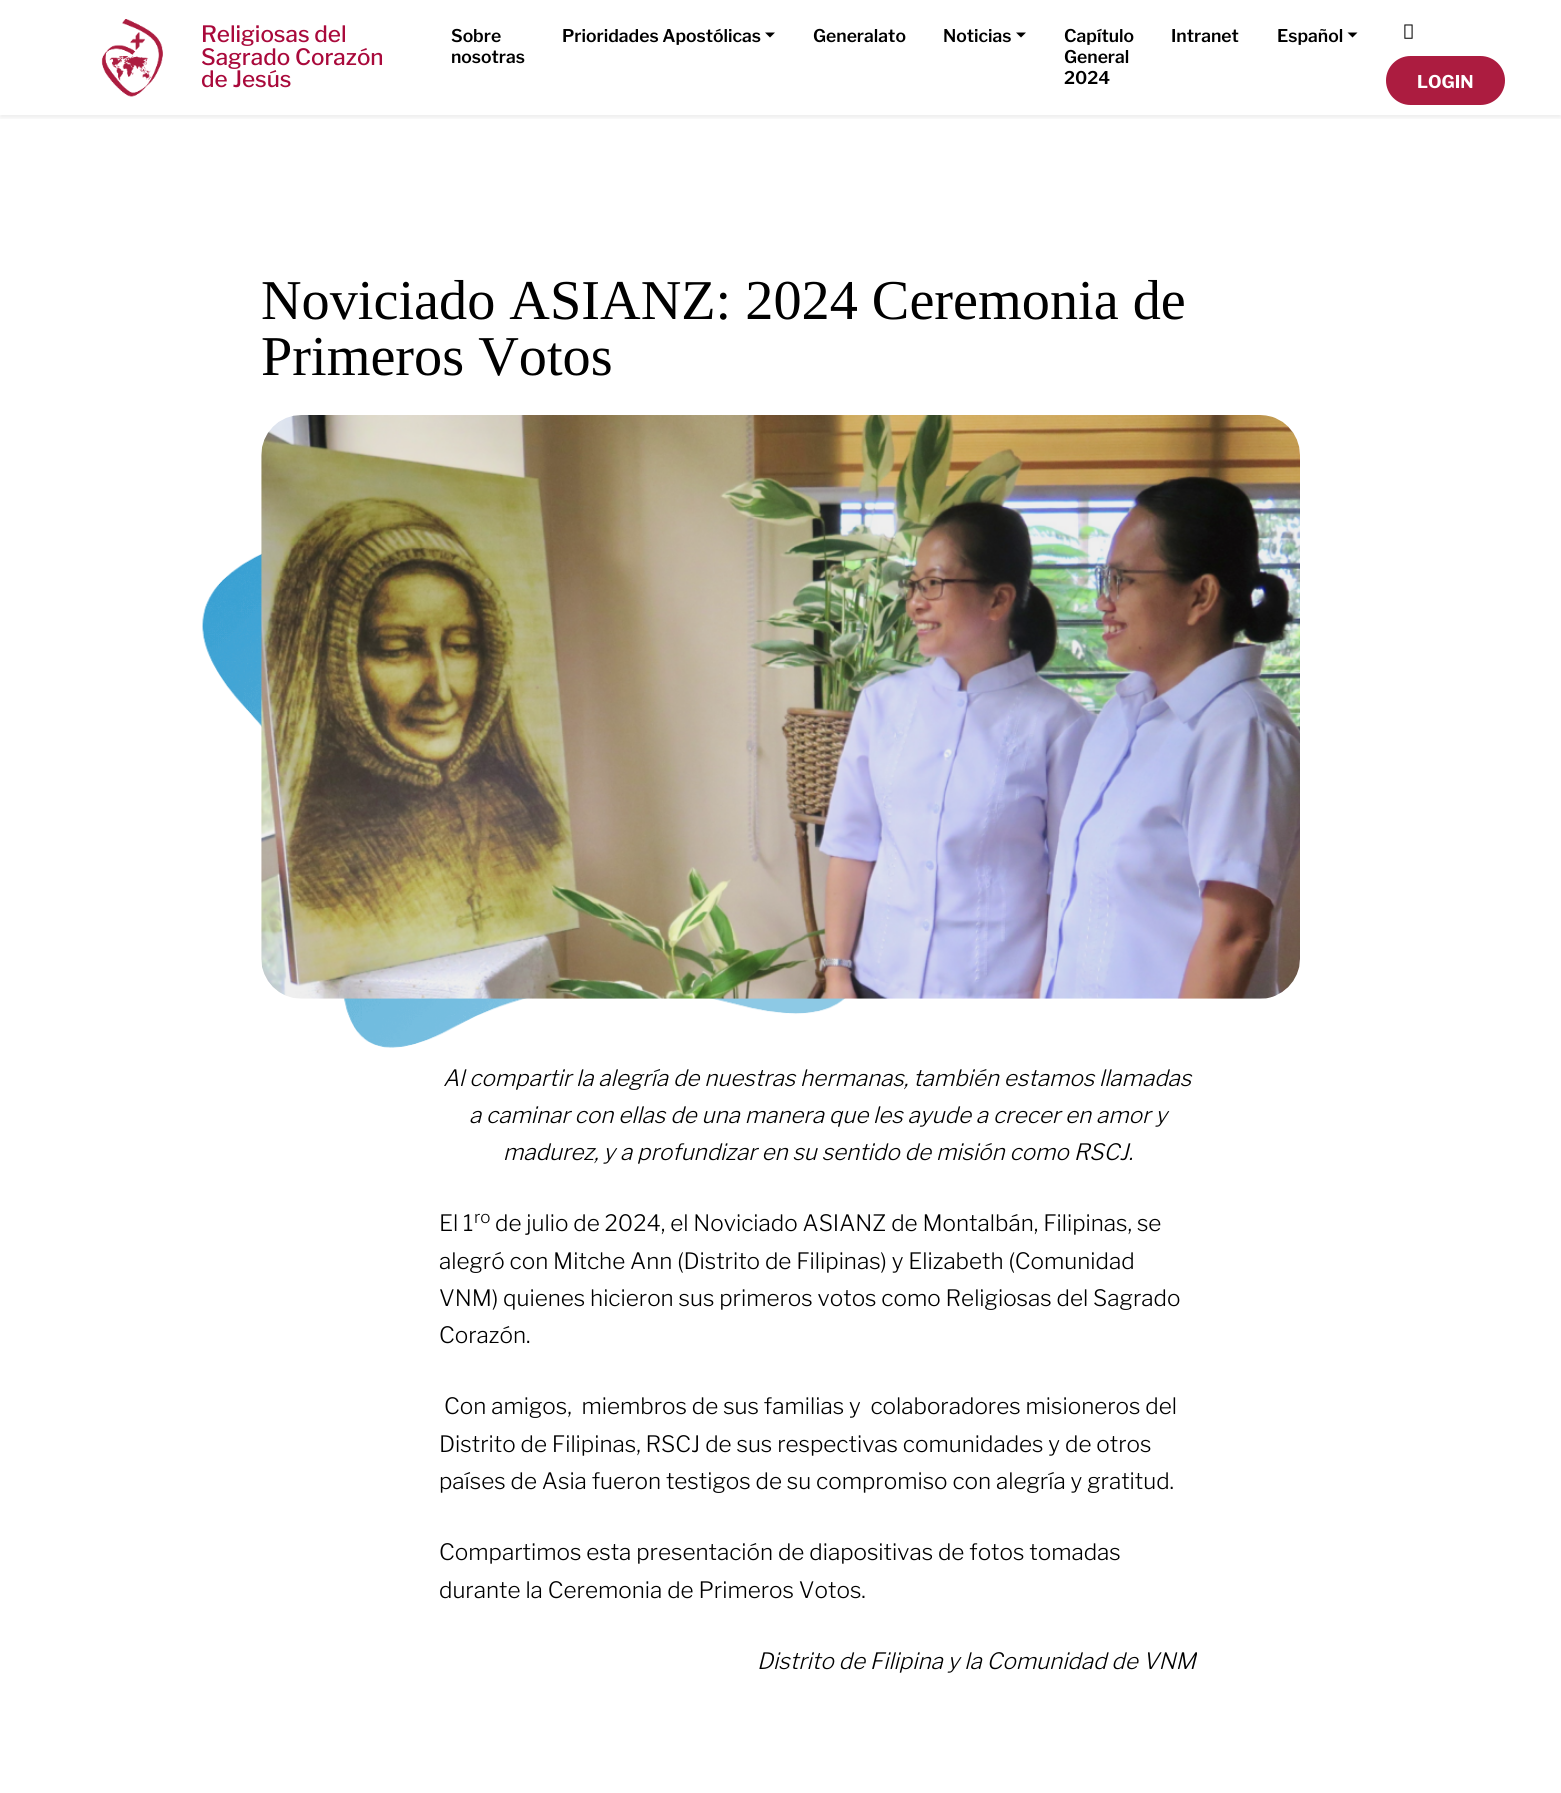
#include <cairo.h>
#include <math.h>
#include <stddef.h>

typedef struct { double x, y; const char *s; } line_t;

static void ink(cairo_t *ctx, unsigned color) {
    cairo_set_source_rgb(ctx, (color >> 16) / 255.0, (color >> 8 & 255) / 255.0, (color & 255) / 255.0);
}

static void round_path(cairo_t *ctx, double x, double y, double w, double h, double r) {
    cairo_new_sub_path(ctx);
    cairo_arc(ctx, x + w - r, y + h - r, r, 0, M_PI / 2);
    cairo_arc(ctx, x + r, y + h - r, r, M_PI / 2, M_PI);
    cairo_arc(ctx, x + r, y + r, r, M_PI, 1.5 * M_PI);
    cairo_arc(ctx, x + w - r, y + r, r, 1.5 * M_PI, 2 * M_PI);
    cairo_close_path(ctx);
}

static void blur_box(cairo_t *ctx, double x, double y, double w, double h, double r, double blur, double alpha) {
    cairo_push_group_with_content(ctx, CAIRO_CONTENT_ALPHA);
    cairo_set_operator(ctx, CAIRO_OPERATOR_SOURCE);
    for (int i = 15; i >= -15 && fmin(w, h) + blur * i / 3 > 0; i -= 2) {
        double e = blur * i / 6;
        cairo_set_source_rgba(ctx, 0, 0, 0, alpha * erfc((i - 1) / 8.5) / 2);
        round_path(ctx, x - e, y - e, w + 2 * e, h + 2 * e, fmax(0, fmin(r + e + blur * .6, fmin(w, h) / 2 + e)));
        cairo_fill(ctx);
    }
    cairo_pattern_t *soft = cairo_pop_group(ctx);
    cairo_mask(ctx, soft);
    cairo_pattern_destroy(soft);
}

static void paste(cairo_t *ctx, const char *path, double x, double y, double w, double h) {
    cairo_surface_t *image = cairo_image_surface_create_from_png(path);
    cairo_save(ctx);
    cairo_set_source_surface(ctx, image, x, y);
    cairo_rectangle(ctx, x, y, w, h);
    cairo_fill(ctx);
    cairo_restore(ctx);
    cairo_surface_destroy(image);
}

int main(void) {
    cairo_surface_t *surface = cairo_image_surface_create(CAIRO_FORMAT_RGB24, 1561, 1793);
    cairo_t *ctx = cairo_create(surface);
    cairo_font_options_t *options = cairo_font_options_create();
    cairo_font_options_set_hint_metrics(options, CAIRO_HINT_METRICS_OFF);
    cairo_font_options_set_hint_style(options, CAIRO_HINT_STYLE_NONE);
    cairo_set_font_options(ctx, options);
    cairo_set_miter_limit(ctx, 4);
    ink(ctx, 0xFFFFFF);
    cairo_paint(ctx);
    cairo_save(ctx);
    cairo_rectangle(ctx, 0, 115, 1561, 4);
    cairo_clip(ctx);
    ink(ctx, 0x000000);
    blur_box(ctx, 0, 3, 1561, 115, 0, 2.5, 0.07);
    cairo_restore(ctx);
    paste(ctx, "media/1.png", 101, 19, 62, 78);
    cairo_select_font_face(ctx, "Libre Franklin Medium", CAIRO_FONT_SLANT_NORMAL, CAIRO_FONT_WEIGHT_NORMAL);
    cairo_set_font_size(ctx, 22.5);
    ink(ctx, 0xA9093B);
    {
        static const line_t items[] = {
            {201, 42, "Religiosas del"},
            {201, 65, "Sagrado Corazón"},
            {201, 87, "de Jesús"},
        };
        for (size_t i = 0; i < sizeof items / sizeof *items; i++) {
            cairo_move_to(ctx, items[i].x, items[i].y);
            cairo_show_text(ctx, items[i].s);
        }
    }
    cairo_select_font_face(ctx, "Libre Franklin SemiBold", CAIRO_FONT_SLANT_NORMAL, CAIRO_FONT_WEIGHT_NORMAL);
    cairo_set_font_size(ctx, 17.5);
    ink(ctx, 0x000000);
    {
        static const line_t items[] = {
            {451, 42, "Sobre"},
            {451, 63, "nosotras"},
            {562, 42, "Prioridades Apostólicas"},
        };
        for (size_t i = 0; i < sizeof items / sizeof *items; i++) {
            cairo_move_to(ctx, items[i].x, items[i].y);
            cairo_show_text(ctx, items[i].s);
        }
    }
    cairo_new_path(ctx);
    cairo_move_to(ctx, 765, 32.5);
    cairo_line_to(ctx, 775, 32.5);
    cairo_line_to(ctx, 770, 37.5);
    cairo_close_path(ctx);
    cairo_fill(ctx);
    cairo_move_to(ctx, 813, 42);
    cairo_show_text(ctx, "Generalato");
    cairo_move_to(ctx, 943, 42);
    cairo_show_text(ctx, "Noticias");
    cairo_new_path(ctx);
    cairo_move_to(ctx, 1016, 32.5);
    cairo_line_to(ctx, 1026, 32.5);
    cairo_line_to(ctx, 1021, 37.5);
    cairo_close_path(ctx);
    cairo_fill(ctx);
    {
        static const line_t items[] = {
            {1064, 42, "Capítulo"},
            {1064, 63, "General"},
            {1064, 84, "2024"},
            {1171, 42, "Intranet"},
            {1277, 42, "Español"},
        };
        for (size_t i = 0; i < sizeof items / sizeof *items; i++) {
            cairo_move_to(ctx, items[i].x, items[i].y);
            cairo_show_text(ctx, items[i].s);
        }
    }
    cairo_new_path(ctx);
    cairo_move_to(ctx, 1347.5, 32.5);
    cairo_line_to(ctx, 1357.5, 32.5);
    cairo_line_to(ctx, 1352.5, 37.5);
    cairo_close_path(ctx);
    cairo_fill(ctx);
    paste(ctx, "media/2.png", 1404, 24, 9, 15);
    ink(ctx, 0xAC1C40);
    round_path(ctx, 1386, 56, 119, 49, 24.5);
    cairo_fill(ctx);
    cairo_select_font_face(ctx, "Libre Franklin", CAIRO_FONT_SLANT_NORMAL, CAIRO_FONT_WEIGHT_BOLD);
    ink(ctx, 0xFFFFFF);
    cairo_move_to(ctx, 1417, 88);
    cairo_show_text(ctx, "LOGIN");
    cairo_select_font_face(ctx, "Liberation Serif", CAIRO_FONT_SLANT_NORMAL, CAIRO_FONT_WEIGHT_NORMAL);
    cairo_set_font_size(ctx, 56.25);
    ink(ctx, 0x000000);
    cairo_move_to(ctx, 261, 319);
    cairo_show_text(ctx, "Noviciado ASIANZ: 2024 Ceremonia de");
    cairo_move_to(ctx, 261, 375);
    cairo_show_text(ctx, "Primeros Votos");
    paste(ctx, "media/4.png", 202, 553, 644, 495);
    paste(ctx, "media/3.png", 261, 415, 1039, 584);
    cairo_select_font_face(ctx, "Libre Franklin Light", CAIRO_FONT_SLANT_ITALIC, CAIRO_FONT_WEIGHT_NORMAL);
    cairo_set_font_size(ctx, 22.5);
    {
        static const line_t items[] = {
            {443, 1086, "Al compartir la alegría de nuestras hermanas, también estamos llamadas"},
            {469, 1123, "a caminar con ellas de una manera que les ayude a crecer en amor y"},
            {503, 1160, "madurez, y a profundizar en su sentido de misión como RSCJ."},
        };
        for (size_t i = 0; i < sizeof items / sizeof *items; i++) {
            cairo_move_to(ctx, items[i].x, items[i].y);
            cairo_show_text(ctx, items[i].s);
        }
    }
    cairo_select_font_face(ctx, "Libre Franklin Light", CAIRO_FONT_SLANT_NORMAL, CAIRO_FONT_WEIGHT_NORMAL);
    cairo_move_to(ctx, 439, 1231);
    cairo_show_text(ctx, "El 1");
    cairo_set_font_size(ctx, 17);
    cairo_move_to(ctx, 474, 1223);
    cairo_show_text(ctx, "ro");
    cairo_set_font_size(ctx, 22.5);
    {
        static const line_t items[] = {
            {495, 1231, "de julio de 2024, el Noviciado ASIANZ de Montalbán, Filipinas, se"},
            {439, 1269, "alegró con Mitche Ann (Distrito de Filipinas) y Elizabeth (Comunidad"},
            {439, 1306, "VNM) quienes hicieron sus primeros votos como Religiosas del Sagrado"},
            {439, 1343, "Corazón."},
            {444, 1414, "Con amigos,  miembros de sus familias y  colaboradores misioneros del"},
            {439, 1452, "Distrito de Filipinas, RSCJ de sus respectivas comunidades y de otros"},
            {439, 1489, "países de Asia fueron testigos de su compromiso con alegría y gratitud."},
            {439, 1560, "Compartimos esta presentación de diapositivas de fotos tomadas"},
            {439, 1598, "durante la Ceremonia de Primeros Votos."},
        };
        for (size_t i = 0; i < sizeof items / sizeof *items; i++) {
            cairo_move_to(ctx, items[i].x, items[i].y);
            cairo_show_text(ctx, items[i].s);
        }
    }
    cairo_select_font_face(ctx, "Libre Franklin Light", CAIRO_FONT_SLANT_ITALIC, CAIRO_FONT_WEIGHT_NORMAL);
    cairo_move_to(ctx, 757, 1669);
    cairo_show_text(ctx, "Distrito de Filipina y la Comunidad de VNM");
    cairo_surface_write_to_png(surface, "image.png");
    cairo_font_options_destroy(options);
    cairo_destroy(ctx);
    cairo_surface_destroy(surface);
    return 0;
}
